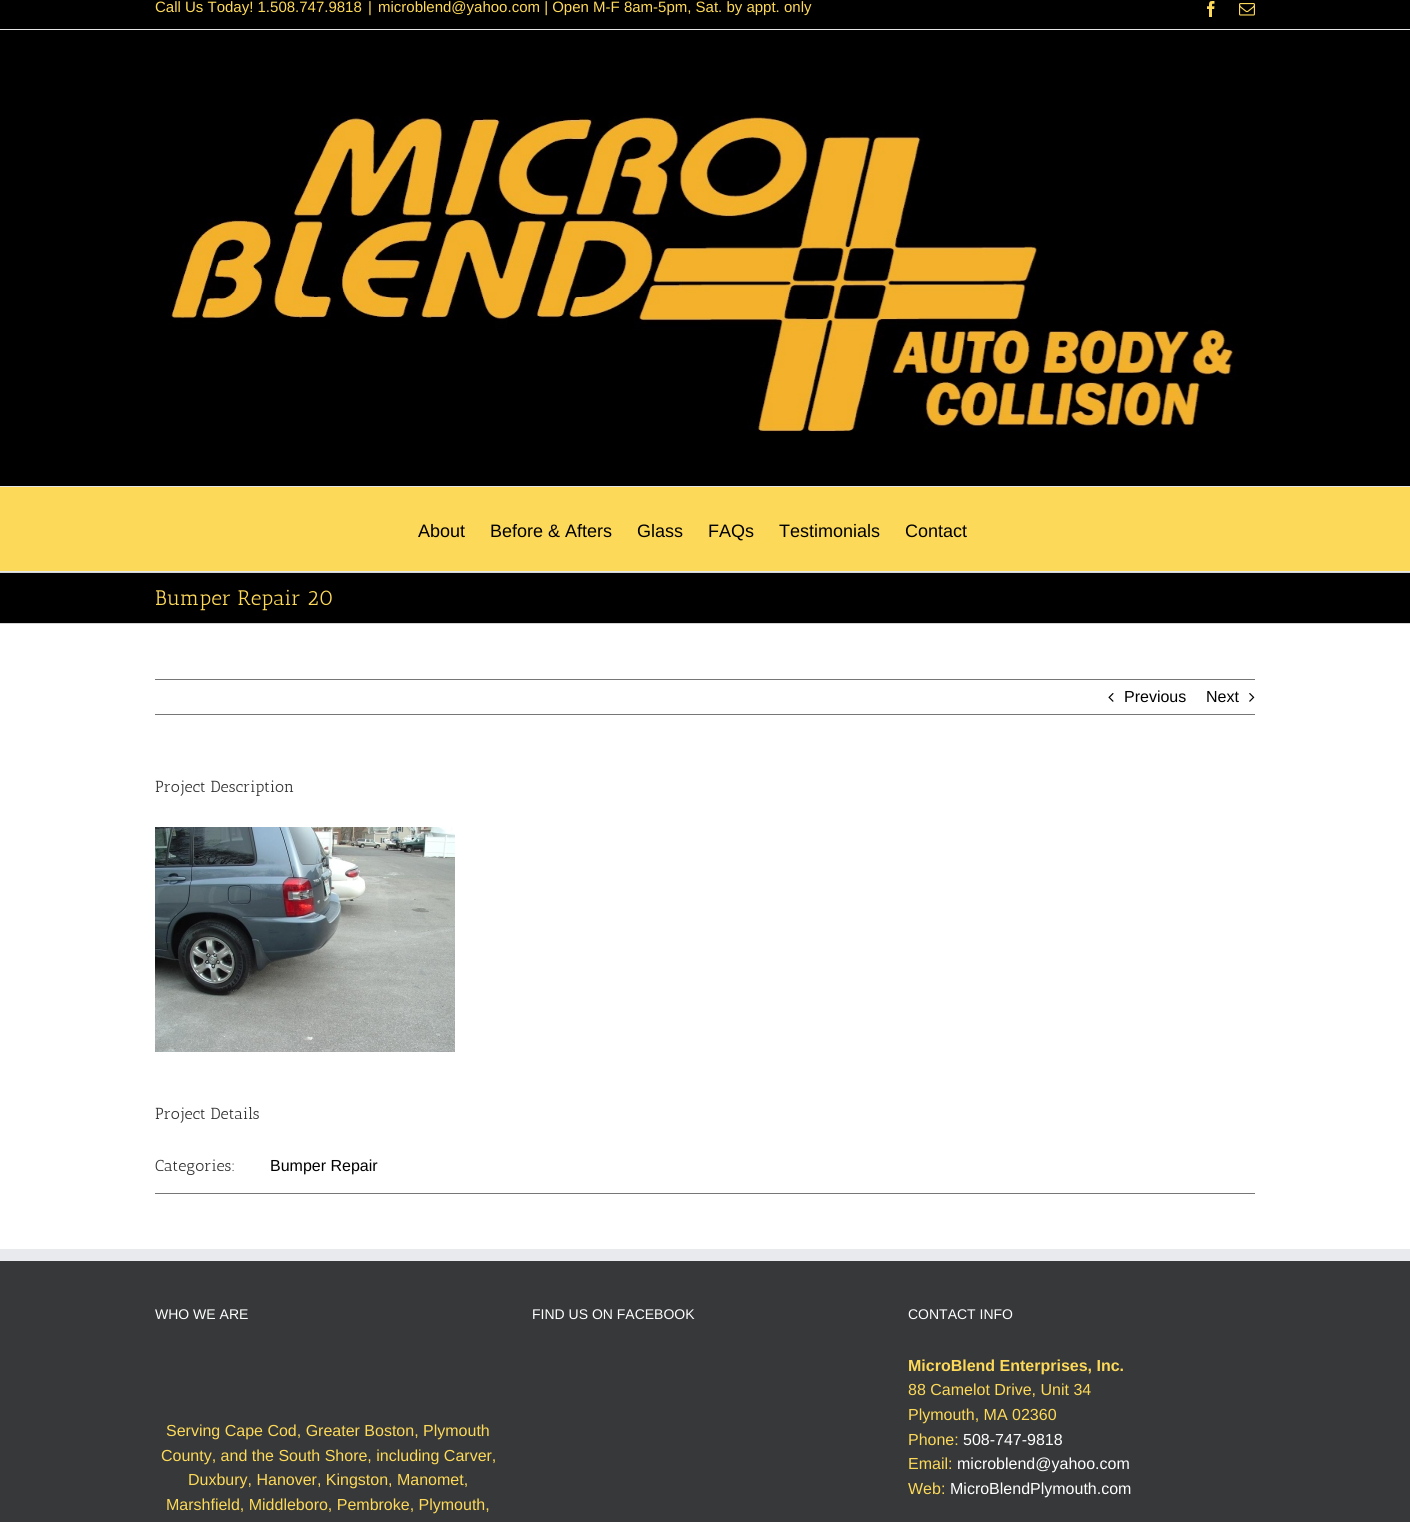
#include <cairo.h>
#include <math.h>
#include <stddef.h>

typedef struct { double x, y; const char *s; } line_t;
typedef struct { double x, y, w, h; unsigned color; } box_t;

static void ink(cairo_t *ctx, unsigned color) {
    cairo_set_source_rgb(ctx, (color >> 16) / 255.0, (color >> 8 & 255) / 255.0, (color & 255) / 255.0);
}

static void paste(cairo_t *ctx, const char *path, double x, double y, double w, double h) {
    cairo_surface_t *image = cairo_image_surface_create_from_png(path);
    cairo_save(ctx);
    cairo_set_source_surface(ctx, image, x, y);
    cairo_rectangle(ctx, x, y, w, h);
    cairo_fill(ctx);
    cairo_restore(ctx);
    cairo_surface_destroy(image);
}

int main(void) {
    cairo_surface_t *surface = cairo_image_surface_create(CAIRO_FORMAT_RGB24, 1410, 1522);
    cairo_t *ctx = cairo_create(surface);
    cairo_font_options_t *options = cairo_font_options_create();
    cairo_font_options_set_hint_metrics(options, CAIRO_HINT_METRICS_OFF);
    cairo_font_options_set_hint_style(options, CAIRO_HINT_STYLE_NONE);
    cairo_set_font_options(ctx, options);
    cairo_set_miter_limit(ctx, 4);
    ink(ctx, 0xFFFFFF);
    cairo_paint(ctx);
    ink(ctx, 0x000000);
    cairo_rectangle(ctx, 0, 0, 1410, 29);
    cairo_fill(ctx);
    ink(ctx, 0xE5E5E5);
    cairo_rectangle(ctx, 0, 29, 1410, 1);
    cairo_fill(ctx);
    cairo_select_font_face(ctx, "Liberation Sans", CAIRO_FONT_SLANT_NORMAL, CAIRO_FONT_WEIGHT_NORMAL);
    cairo_set_font_size(ctx, 15);
    ink(ctx, 0xFDD959);
    {
        static const line_t items[] = {
            {155, 12, "Call Us Today! 1.508.747.9818"},
            {368, 12, "|"},
            {378, 12, "microblend@yahoo.com | Open M-F 8am-5pm, Sat. by appt. only"},
        };
        for (size_t i = 0; i < sizeof items / sizeof *items; i++) {
            cairo_move_to(ctx, items[i].x, items[i].y);
            cairo_show_text(ctx, items[i].s);
        }
    }
    paste(ctx, "media/1.png", 1207, 1, 8, 16);
    paste(ctx, "media/2.png", 1239, 3, 16, 13);
    ink(ctx, 0x000000);
    cairo_rectangle(ctx, 0, 30, 1410, 456);
    cairo_fill(ctx);
    ink(ctx, 0xE5E5E5);
    cairo_rectangle(ctx, 0, 486, 1410, 1);
    cairo_fill(ctx);
    paste(ctx, "media/3.png", 168, 116, 1070, 316);
    ink(ctx, 0xFDD959);
    cairo_rectangle(ctx, 0, 487, 1410, 84);
    cairo_fill(ctx);
    ink(ctx, 0xE5E5E5);
    cairo_rectangle(ctx, 0, 571, 1410, 1);
    cairo_fill(ctx);
    cairo_set_font_size(ctx, 18);
    ink(ctx, 0x000000);
    {
        static const line_t items[] = {
            {418, 537, "About"},
            {490, 537, "Before & Afters"},
            {637, 537, "Glass"},
            {708, 537, "FAQs"},
            {779, 537, "Testimonials"},
            {905, 537, "Contact"},
        };
        for (size_t i = 0; i < sizeof items / sizeof *items; i++) {
            cairo_move_to(ctx, items[i].x, items[i].y);
            cairo_show_text(ctx, items[i].s);
        }
    }
    {
        static const box_t items[] = {
            {0, 573, 1410, 50, 0x000000},
            {0, 572, 1410, 1, 0xD2D3D4},
            {0, 623, 1410, 1, 0xD2D3D4},
        };
        for (size_t i = 0; i < sizeof items / sizeof *items; i++) {
            ink(ctx, items[i].color);
            cairo_rectangle(ctx, items[i].x, items[i].y, items[i].w, items[i].h);
            cairo_fill(ctx);
        }
    }
    cairo_select_font_face(ctx, "Antic Slab", CAIRO_FONT_SLANT_NORMAL, CAIRO_FONT_WEIGHT_NORMAL);
    cairo_set_font_size(ctx, 21);
    ink(ctx, 0xFDD959);
    cairo_move_to(ctx, 155, 605);
    cairo_show_text(ctx, "Bumper Repair 20");
    ink(ctx, 0x747776);
    cairo_rectangle(ctx, 155, 679, 1100, 1);
    cairo_fill(ctx);
    cairo_rectangle(ctx, 155, 714, 1100, 1);
    cairo_fill(ctx);
    paste(ctx, "media/4.png", 1108, 693, 6, 9);
    cairo_select_font_face(ctx, "Liberation Sans", CAIRO_FONT_SLANT_NORMAL, CAIRO_FONT_WEIGHT_NORMAL);
    cairo_set_font_size(ctx, 16);
    ink(ctx, 0x000000);
    cairo_move_to(ctx, 1124, 702);
    cairo_show_text(ctx, "Previous");
    cairo_move_to(ctx, 1206, 702);
    cairo_show_text(ctx, "Next");
    paste(ctx, "media/5.png", 1249, 693, 6, 9);
    cairo_select_font_face(ctx, "Antic Slab", CAIRO_FONT_SLANT_NORMAL, CAIRO_FONT_WEIGHT_NORMAL);
    ink(ctx, 0x333333);
    cairo_move_to(ctx, 155, 792);
    cairo_show_text(ctx, "Project Description");
    paste(ctx, "media/6.png", 155, 827, 300, 225);
    cairo_move_to(ctx, 155, 1119);
    cairo_show_text(ctx, "Project Details");
    ink(ctx, 0x747776);
    cairo_rectangle(ctx, 155, 1193, 1100, 1);
    cairo_fill(ctx);
    ink(ctx, 0x333333);
    cairo_move_to(ctx, 155, 1171);
    cairo_show_text(ctx, "Categories:");
    cairo_select_font_face(ctx, "Liberation Sans", CAIRO_FONT_SLANT_NORMAL, CAIRO_FONT_WEIGHT_NORMAL);
    ink(ctx, 0x000000);
    cairo_move_to(ctx, 270, 1171);
    cairo_show_text(ctx, "Bumper Repair");
    ink(ctx, 0x363839);
    cairo_rectangle(ctx, 0, 1261, 1410, 261);
    cairo_fill(ctx);
    ink(ctx, 0xE9EAEE);
    cairo_rectangle(ctx, 0, 1249, 1410, 12);
    cairo_fill(ctx);
    cairo_set_font_size(ctx, 14);
    ink(ctx, 0xFFFFFF);
    cairo_move_to(ctx, 155, 1319);
    cairo_show_text(ctx, "WHO WE ARE");
    cairo_set_font_size(ctx, 16);
    ink(ctx, 0xFDD959);
    {
        static const line_t items[] = {
            {166, 1436, "Serving Cape Cod, Greater Boston, Plymouth"},
            {161, 1461, "County, and the South Shore, including Carver,"},
            {188, 1485, "Duxbury, Hanover, Kingston, Manomet,"},
            {166, 1510, "Marshfield, Middleboro, Pembroke, Plymouth,"},
        };
        for (size_t i = 0; i < sizeof items / sizeof *items; i++) {
            cairo_move_to(ctx, items[i].x, items[i].y);
            cairo_show_text(ctx, items[i].s);
        }
    }
    cairo_set_font_size(ctx, 14);
    ink(ctx, 0xFFFFFF);
    cairo_move_to(ctx, 532, 1319);
    cairo_show_text(ctx, "FIND US ON FACEBOOK");
    cairo_move_to(ctx, 908, 1319);
    cairo_show_text(ctx, "CONTACT INFO");
    cairo_select_font_face(ctx, "Liberation Sans", CAIRO_FONT_SLANT_NORMAL, CAIRO_FONT_WEIGHT_BOLD);
    cairo_set_font_size(ctx, 16);
    ink(ctx, 0xFDD959);
    cairo_move_to(ctx, 908, 1371);
    cairo_show_text(ctx, "MicroBlend Enterprises, Inc.");
    cairo_select_font_face(ctx, "Liberation Sans", CAIRO_FONT_SLANT_NORMAL, CAIRO_FONT_WEIGHT_NORMAL);
    {
        static const line_t items[] = {
            {908, 1395, "88 Camelot Drive, Unit 34"},
            {908, 1420, "Plymouth, MA 02360"},
            {908, 1445, "Phone:"},
        };
        for (size_t i = 0; i < sizeof items / sizeof *items; i++) {
            cairo_move_to(ctx, items[i].x, items[i].y);
            cairo_show_text(ctx, items[i].s);
        }
    }
    ink(ctx, 0xFFFFFF);
    cairo_move_to(ctx, 963, 1445);
    cairo_show_text(ctx, "508-747-9818");
    ink(ctx, 0xFDD959);
    cairo_move_to(ctx, 908, 1469);
    cairo_show_text(ctx, "Email:");
    ink(ctx, 0xFFFFFF);
    cairo_move_to(ctx, 957, 1469);
    cairo_show_text(ctx, "microblend@yahoo.com");
    ink(ctx, 0xFDD959);
    cairo_move_to(ctx, 908, 1494);
    cairo_show_text(ctx, "Web:");
    ink(ctx, 0xFFFFFF);
    cairo_move_to(ctx, 950, 1494);
    cairo_show_text(ctx, "MicroBlendPlymouth.com");
    cairo_surface_write_to_png(surface, "image.png");
    cairo_font_options_destroy(options);
    cairo_destroy(ctx);
    cairo_surface_destroy(surface);
    return 0;
}
